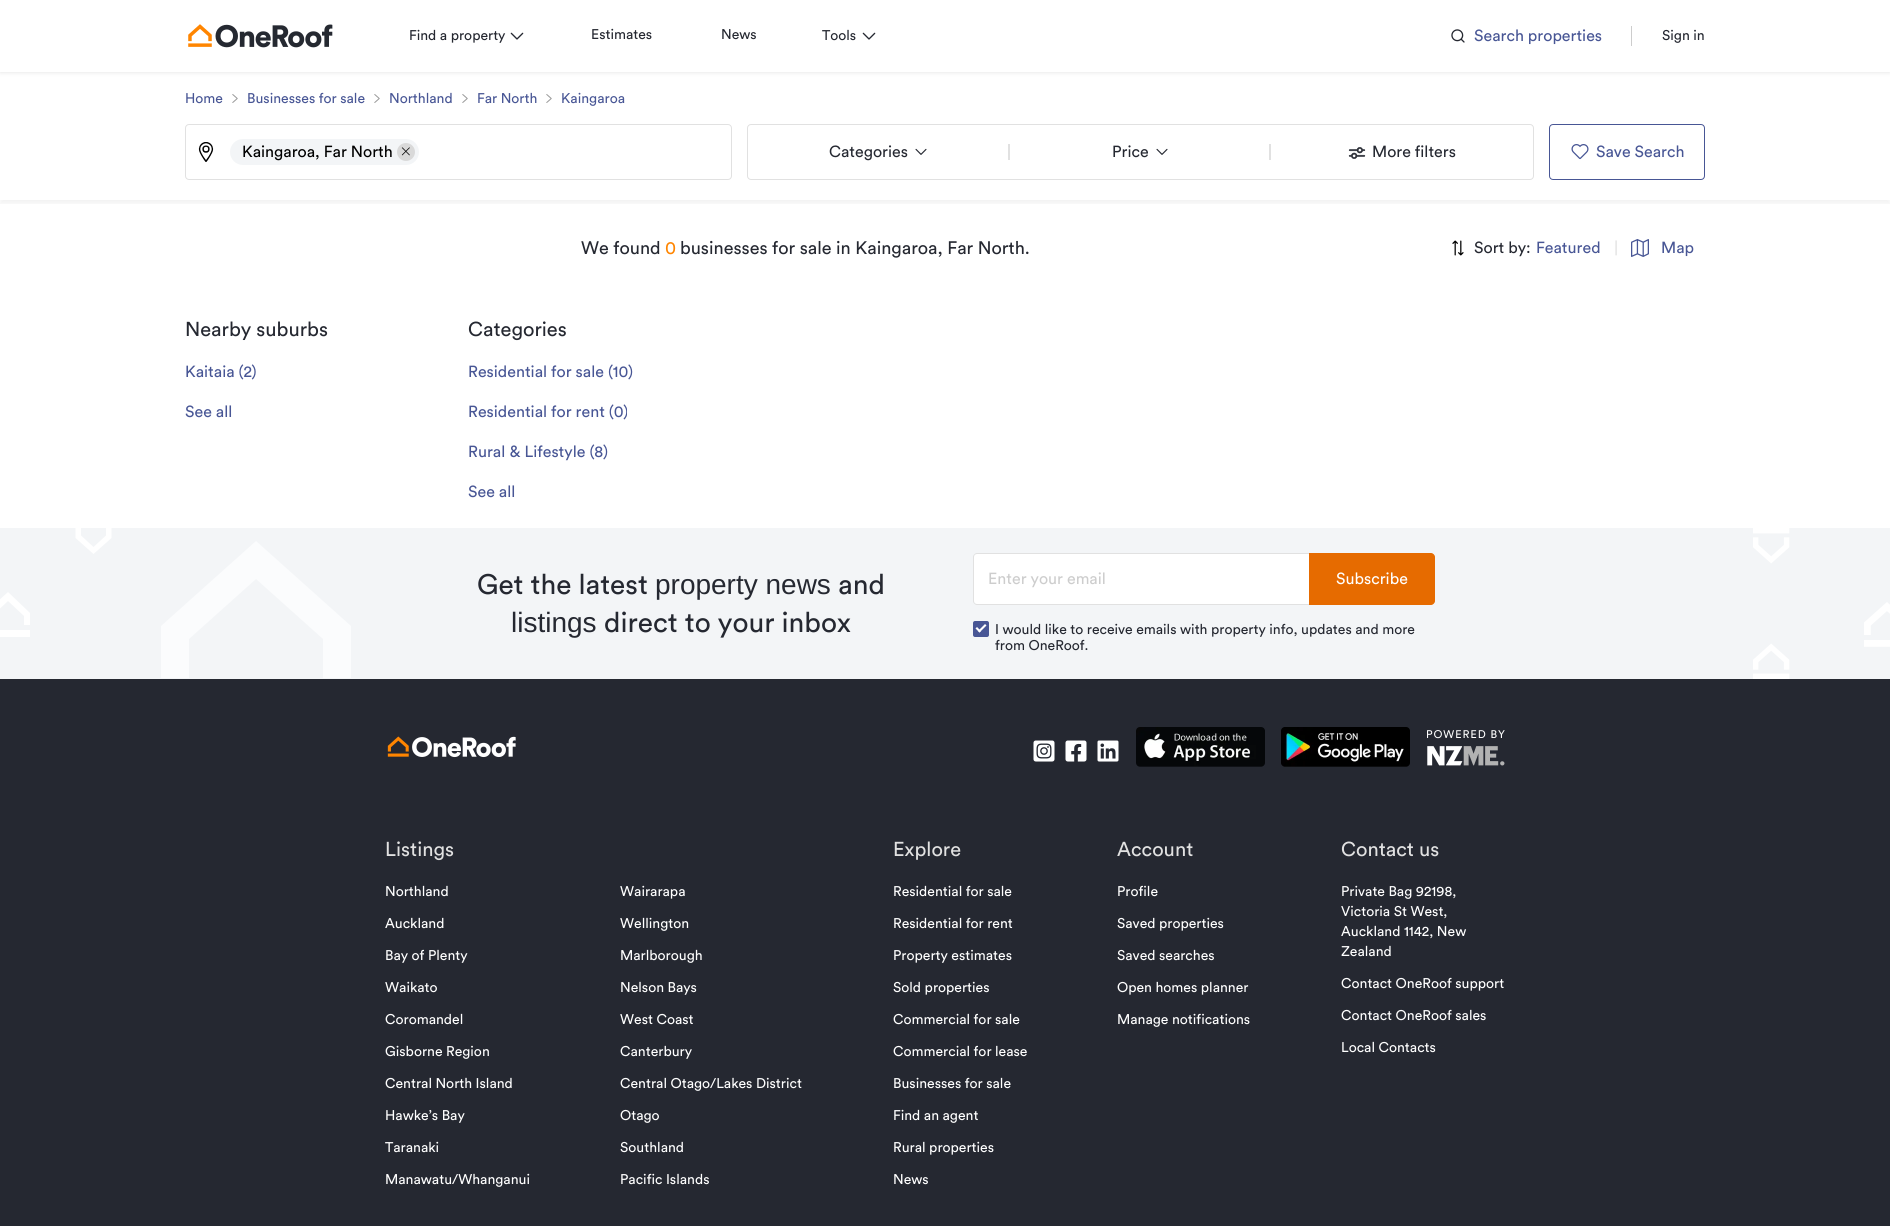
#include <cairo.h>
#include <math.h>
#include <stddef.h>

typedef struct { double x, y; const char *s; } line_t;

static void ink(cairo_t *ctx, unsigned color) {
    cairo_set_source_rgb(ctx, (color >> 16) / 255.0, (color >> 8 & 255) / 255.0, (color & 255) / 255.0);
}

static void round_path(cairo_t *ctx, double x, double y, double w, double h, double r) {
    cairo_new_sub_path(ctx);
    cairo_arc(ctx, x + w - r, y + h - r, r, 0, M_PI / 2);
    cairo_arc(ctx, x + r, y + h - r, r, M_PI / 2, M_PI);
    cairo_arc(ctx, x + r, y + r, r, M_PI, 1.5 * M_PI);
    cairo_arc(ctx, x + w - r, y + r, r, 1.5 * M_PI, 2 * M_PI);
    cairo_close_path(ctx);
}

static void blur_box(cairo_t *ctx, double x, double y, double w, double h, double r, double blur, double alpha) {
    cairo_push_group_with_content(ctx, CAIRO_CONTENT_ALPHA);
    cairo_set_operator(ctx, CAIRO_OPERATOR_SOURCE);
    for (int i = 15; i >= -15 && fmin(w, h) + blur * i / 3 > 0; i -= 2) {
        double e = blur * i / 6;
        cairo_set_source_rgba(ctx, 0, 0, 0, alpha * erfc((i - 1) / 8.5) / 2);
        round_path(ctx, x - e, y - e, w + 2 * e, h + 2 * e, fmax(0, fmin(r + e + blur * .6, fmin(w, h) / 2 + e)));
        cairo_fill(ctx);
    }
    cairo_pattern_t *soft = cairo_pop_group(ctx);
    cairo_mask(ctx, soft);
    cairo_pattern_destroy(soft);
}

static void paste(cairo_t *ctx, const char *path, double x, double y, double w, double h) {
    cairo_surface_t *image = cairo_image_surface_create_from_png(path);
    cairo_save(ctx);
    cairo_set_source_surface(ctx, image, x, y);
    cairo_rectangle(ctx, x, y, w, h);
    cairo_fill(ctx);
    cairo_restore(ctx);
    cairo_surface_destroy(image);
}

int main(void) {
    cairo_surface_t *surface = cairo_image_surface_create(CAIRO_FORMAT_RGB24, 1890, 1226);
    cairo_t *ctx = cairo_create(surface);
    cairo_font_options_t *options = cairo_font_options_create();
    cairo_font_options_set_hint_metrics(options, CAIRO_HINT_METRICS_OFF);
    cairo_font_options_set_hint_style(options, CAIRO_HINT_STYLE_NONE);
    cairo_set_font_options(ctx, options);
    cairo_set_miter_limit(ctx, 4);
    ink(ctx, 0xFFFFFF);
    cairo_paint(ctx);
    cairo_save(ctx);
    cairo_rectangle(ctx, 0, 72, 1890, 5);
    cairo_clip(ctx);
    ink(ctx, 0xE1E1E1);
    blur_box(ctx, 0, 0, 1890, 72, 0, 2.5, 1);
    cairo_restore(ctx);
    paste(ctx, "media/1.png", 188, 24, 145, 24);
    cairo_select_font_face(ctx, "Circular", CAIRO_FONT_SLANT_NORMAL, CAIRO_FONT_WEIGHT_NORMAL);
    cairo_set_font_size(ctx, 14);
    ink(ctx, 0x252831);
    cairo_move_to(ctx, 409, 40);
    cairo_show_text(ctx, "Find a property");
    paste(ctx, "media/2.png", 510, 32, 14, 8);
    {
        static const line_t items[] = {
            {591, 39, "Estimates"},
            {721, 39, "News"},
            {822, 40, "Tools"},
        };
        for (size_t i = 0; i < sizeof items / sizeof *items; i++) {
            cairo_move_to(ctx, items[i].x, items[i].y);
            cairo_show_text(ctx, items[i].s);
        }
    }
    paste(ctx, "media/2.png", 862, 32, 14, 8);
    paste(ctx, "media/3.png", 1451, 29, 14, 14);
    cairo_set_font_size(ctx, 16);
    ink(ctx, 0x485695);
    cairo_move_to(ctx, 1474, 41);
    cairo_show_text(ctx, "Search properties");
    ink(ctx, 0xCDCDCD);
    cairo_rectangle(ctx, 1631, 26, 1, 20);
    cairo_fill(ctx);
    cairo_set_font_size(ctx, 14);
    ink(ctx, 0x252831);
    cairo_move_to(ctx, 1662, 40);
    cairo_show_text(ctx, "Sign in");
    cairo_save(ctx);
    cairo_rectangle(ctx, 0, 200, 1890, 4);
    cairo_clip(ctx);
    ink(ctx, 0x000000);
    blur_box(ctx, 0, 76, 1890, 128, 0, 2, 0.05);
    cairo_restore(ctx);
    ink(ctx, 0x485695);
    cairo_move_to(ctx, 185, 103);
    cairo_show_text(ctx, "Home");
    paste(ctx, "media/4.png", 232, 94, 6, 9);
    cairo_move_to(ctx, 247, 103);
    cairo_show_text(ctx, "Businesses for sale");
    paste(ctx, "media/4.png", 374, 94, 6, 9);
    cairo_move_to(ctx, 389, 103);
    cairo_show_text(ctx, "Northland");
    paste(ctx, "media/4.png", 462, 94, 6, 9);
    cairo_move_to(ctx, 477, 103);
    cairo_show_text(ctx, "Far North");
    paste(ctx, "media/4.png", 546, 94, 6, 9);
    cairo_move_to(ctx, 561, 103);
    cairo_show_text(ctx, "Kaingaroa");
    round_path(ctx, 185.5, 124.5, 546, 55, 3.5);
    ink(ctx, 0xE1E1E1);
    cairo_set_line_width(ctx, 1);
    cairo_stroke(ctx);
    paste(ctx, "media/5.png", 198, 142, 16, 20);
    ink(ctx, 0xF3F5F7);
    round_path(ctx, 230, 139, 189, 26, 13);
    cairo_fill(ctx);
    cairo_set_font_size(ctx, 16);
    ink(ctx, 0x000000);
    cairo_move_to(ctx, 242, 157);
    cairo_show_text(ctx, "Kaingaroa, Far North");
    ink(ctx, 0xD9D9D9);
    cairo_new_path(ctx);
    cairo_arc(ctx, 406, 152, 9, 0, 2 * M_PI);
    cairo_fill(ctx);
    paste(ctx, "media/6.png", 401, 147, 9, 9);
    round_path(ctx, 747.5, 124.5, 786, 55, 3.5);
    ink(ctx, 0xE1E1E1);
    cairo_stroke(ctx);
    ink(ctx, 0x252831);
    cairo_move_to(ctx, 829, 157);
    cairo_show_text(ctx, "Categories");
    paste(ctx, "media/7.png", 915, 148, 12, 7);
    ink(ctx, 0xE1E1E1);
    cairo_rectangle(ctx, 1008, 144, 2, 16);
    cairo_fill(ctx);
    ink(ctx, 0x252831);
    cairo_move_to(ctx, 1112, 157);
    cairo_show_text(ctx, "Price");
    paste(ctx, "media/7.png", 1156, 148, 12, 7);
    ink(ctx, 0xE1E1E1);
    cairo_rectangle(ctx, 1269, 144, 2, 16);
    cairo_fill(ctx);
    paste(ctx, "media/8.png", 1348, 147, 18, 12);
    ink(ctx, 0x252831);
    cairo_move_to(ctx, 1372, 157);
    cairo_show_text(ctx, "More filters");
    round_path(ctx, 1549.5, 124.5, 155, 55, 3.5);
    ink(ctx, 0x485695);
    cairo_stroke(ctx);
    paste(ctx, "media/9.png", 1571, 144, 18, 16);
    cairo_move_to(ctx, 1596, 157);
    cairo_show_text(ctx, "Save Search");
    cairo_set_font_size(ctx, 18);
    ink(ctx, 0x252831);
    cairo_move_to(ctx, 581, 254);
    cairo_show_text(ctx, "We found");
    ink(ctx, 0xFF8500);
    cairo_move_to(ctx, 665, 254);
    cairo_show_text(ctx, "0");
    ink(ctx, 0x252831);
    cairo_move_to(ctx, 680, 254);
    cairo_show_text(ctx, "businesses for sale in Kaingaroa, Far North.");
    paste(ctx, "media/10.png", 1452, 240, 12, 16);
    cairo_set_font_size(ctx, 16);
    cairo_move_to(ctx, 1474, 253);
    cairo_show_text(ctx, "Sort by:");
    ink(ctx, 0x485695);
    cairo_move_to(ctx, 1536, 253);
    cairo_show_text(ctx, "Featured");
    ink(ctx, 0xE1E1E1);
    cairo_move_to(ctx, 1614, 253);
    cairo_show_text(ctx, "|");
    paste(ctx, "media/11.png", 1631, 239, 18, 18);
    ink(ctx, 0x485695);
    cairo_move_to(ctx, 1661, 253);
    cairo_show_text(ctx, "Map");
    cairo_set_font_size(ctx, 20);
    ink(ctx, 0x252831);
    cairo_move_to(ctx, 185, 336);
    cairo_show_text(ctx, "Nearby suburbs");
    cairo_set_font_size(ctx, 16);
    ink(ctx, 0x485695);
    cairo_move_to(ctx, 185, 377);
    cairo_show_text(ctx, "Kaitaia (2)");
    cairo_move_to(ctx, 185, 417);
    cairo_show_text(ctx, "See all");
    cairo_set_font_size(ctx, 20);
    ink(ctx, 0x252831);
    cairo_move_to(ctx, 468, 336);
    cairo_show_text(ctx, "Categories");
    cairo_set_font_size(ctx, 16);
    ink(ctx, 0x485695);
    {
        static const line_t items[] = {
            {468, 377, "Residential for sale (10)"},
            {468, 417, "Residential for rent (0)"},
            {468, 457, "Rural & Lifestyle (8)"},
            {468, 497, "See all"},
        };
        for (size_t i = 0; i < sizeof items / sizeof *items; i++) {
            cairo_move_to(ctx, items[i].x, items[i].y);
            cairo_show_text(ctx, items[i].s);
        }
    }
    ink(ctx, 0xF3F5F7);
    cairo_rectangle(ctx, 0, 528, 1890, 151);
    cairo_fill(ctx);
    ink(ctx, 0xFFFFFF);
    cairo_new_path(ctx);
    cairo_move_to(ctx, 30, 625);
    cairo_line_to(ctx, 24, 625);
    cairo_line_to(ctx, 24, 616);
    cairo_line_to(ctx, 8, 601);
    cairo_line_to(ctx, -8, 616);
    cairo_line_to(ctx, -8, 625);
    cairo_line_to(ctx, -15, 625);
    cairo_line_to(ctx, -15, 613);
    cairo_line_to(ctx, 8, 592);
    cairo_line_to(ctx, 30, 613);
    cairo_close_path(ctx);
    cairo_move_to(ctx, 30, 630);
    cairo_line_to(ctx, -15, 630);
    cairo_line_to(ctx, -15, 637);
    cairo_line_to(ctx, 30, 637);
    cairo_close_path(ctx);
    cairo_fill(ctx);
    ink(ctx, 0xFBFCFD);
    cairo_new_path(ctx);
    cairo_move_to(ctx, 351, 678);
    cairo_line_to(ctx, 323, 678);
    cairo_line_to(ctx, 323, 639);
    cairo_line_to(ctx, 256, 579);
    cairo_line_to(ctx, 189, 639);
    cairo_line_to(ctx, 189, 678);
    cairo_line_to(ctx, 161, 678);
    cairo_line_to(ctx, 161, 626);
    cairo_line_to(ctx, 256, 541);
    cairo_line_to(ctx, 351, 626);
    cairo_close_path(ctx);
    cairo_fill(ctx);
    ink(ctx, 0xFFFFFF);
    cairo_new_path(ctx);
    cairo_move_to(ctx, 111.5, 528);
    cairo_line_to(ctx, 106, 528);
    cairo_line_to(ctx, 106, 535.5);
    cairo_line_to(ctx, 93.5, 547);
    cairo_line_to(ctx, 81, 535.5);
    cairo_line_to(ctx, 81, 528);
    cairo_line_to(ctx, 75.5, 528);
    cairo_line_to(ctx, 75.5, 538);
    cairo_line_to(ctx, 93.5, 554);
    cairo_line_to(ctx, 111.5, 538);
    cairo_close_path(ctx);
    cairo_fill(ctx);
    cairo_set_font_size(ctx, 28);
    ink(ctx, 0x252831);
    cairo_move_to(ctx, 477, 594);
    cairo_show_text(ctx, "Get the latest");
    cairo_select_font_face(ctx, "Liberation Sans", CAIRO_FONT_SLANT_NORMAL, CAIRO_FONT_WEIGHT_NORMAL);
    cairo_move_to(ctx, 655, 594);
    cairo_show_text(ctx, "property news");
    cairo_select_font_face(ctx, "Circular", CAIRO_FONT_SLANT_NORMAL, CAIRO_FONT_WEIGHT_NORMAL);
    cairo_move_to(ctx, 838, 594);
    cairo_show_text(ctx, "and");
    cairo_select_font_face(ctx, "Liberation Sans", CAIRO_FONT_SLANT_NORMAL, CAIRO_FONT_WEIGHT_NORMAL);
    cairo_move_to(ctx, 511, 632);
    cairo_show_text(ctx, "listings");
    cairo_select_font_face(ctx, "Circular", CAIRO_FONT_SLANT_NORMAL, CAIRO_FONT_WEIGHT_NORMAL);
    cairo_move_to(ctx, 604, 632);
    cairo_show_text(ctx, "direct to your inbox");
    ink(ctx, 0xFFFFFF);
    cairo_new_path(ctx);
    cairo_move_to(ctx, 977, 554);
    cairo_line_to(ctx, 1309, 554);
    cairo_line_to(ctx, 1309, 604);
    cairo_line_to(ctx, 977, 604);
    cairo_curve_to(ctx, 975.5, 604, 974, 602.5, 974, 601);
    cairo_line_to(ctx, 974, 557);
    cairo_curve_to(ctx, 974, 555.5, 975.5, 554, 977, 554);
    cairo_close_path(ctx);
    cairo_fill(ctx);
    ink(ctx, 0xE1E1E1);
    cairo_set_fill_rule(ctx, CAIRO_FILL_RULE_EVEN_ODD);
    cairo_new_path(ctx);
    cairo_move_to(ctx, 977, 553);
    cairo_line_to(ctx, 1309, 553);
    cairo_line_to(ctx, 1309, 605);
    cairo_line_to(ctx, 977, 605);
    cairo_curve_to(ctx, 975, 605, 973, 603, 973, 601);
    cairo_line_to(ctx, 973, 557);
    cairo_curve_to(ctx, 973, 555, 975, 553, 977, 553);
    cairo_close_path(ctx);
    cairo_move_to(ctx, 977, 554);
    cairo_line_to(ctx, 1309, 554);
    cairo_line_to(ctx, 1309, 604);
    cairo_line_to(ctx, 977, 604);
    cairo_curve_to(ctx, 975, 604, 974, 603, 974, 601);
    cairo_line_to(ctx, 974, 557);
    cairo_curve_to(ctx, 974, 555, 975, 554, 977, 554);
    cairo_close_path(ctx);
    cairo_fill(ctx);
    cairo_set_font_size(ctx, 16);
    ink(ctx, 0xCDCDCD);
    cairo_move_to(ctx, 988, 584);
    cairo_show_text(ctx, "Enter your email");
    ink(ctx, 0xE66B00);
    cairo_new_path(ctx);
    cairo_move_to(ctx, 1309, 553);
    cairo_line_to(ctx, 1431, 553);
    cairo_curve_to(ctx, 1433, 553, 1435, 555, 1435, 557);
    cairo_line_to(ctx, 1435, 601);
    cairo_curve_to(ctx, 1435, 603, 1433, 605, 1431, 605);
    cairo_line_to(ctx, 1309, 605);
    cairo_close_path(ctx);
    cairo_fill(ctx);
    ink(ctx, 0xFFFFFF);
    cairo_move_to(ctx, 1336, 584);
    cairo_show_text(ctx, "Subscribe");
    ink(ctx, 0x485695);
    round_path(ctx, 973, 621, 16, 16, 2);
    cairo_fill(ctx);
    ink(ctx, 0xFFFFFF);
    cairo_set_fill_rule(ctx, CAIRO_FILL_RULE_WINDING);
    cairo_new_path(ctx);
    cairo_move_to(ctx, 985, 624);
    cairo_line_to(ctx, 986.5, 625.5);
    cairo_line_to(ctx, 979.5, 632.5);
    cairo_line_to(ctx, 978, 631);
    cairo_close_path(ctx);
    cairo_fill(ctx);
    cairo_new_path(ctx);
    cairo_move_to(ctx, 977, 627);
    cairo_line_to(ctx, 981, 631);
    cairo_line_to(ctx, 979.5, 632.5);
    cairo_line_to(ctx, 975.5, 628.5);
    cairo_close_path(ctx);
    cairo_fill(ctx);
    cairo_set_font_size(ctx, 14);
    ink(ctx, 0x252831);
    cairo_move_to(ctx, 995, 634);
    cairo_show_text(ctx, "I would like to receive emails with property info, updates and more");
    cairo_move_to(ctx, 995, 650);
    cairo_show_text(ctx, "from OneRoof.");
    paste(ctx, "media/12.png", 1753, 528, 137, 151);
    cairo_rectangle(ctx, 0, 679, 1890, 547);
    cairo_fill(ctx);
    paste(ctx, "media/13.png", 387, 736, 129, 22);
    paste(ctx, "media/14.png", 1033, 740, 22, 22);
    paste(ctx, "media/15.png", 1065, 740, 22, 22);
    paste(ctx, "media/16.png", 1097, 740, 22, 22);
    paste(ctx, "media/17.png", 1136, 727, 129, 40);
    paste(ctx, "media/18.png", 1281, 727, 129, 40);
    paste(ctx, "media/19.png", 1427, 730, 78, 36);
    cairo_set_font_size(ctx, 20);
    ink(ctx, 0xE1E1E1);
    cairo_move_to(ctx, 385, 856);
    cairo_show_text(ctx, "Listings");
    cairo_set_font_size(ctx, 14);
    ink(ctx, 0xFFFFFF);
    {
        static const line_t items[] = {
            {385, 896, "Northland"},
            {385, 928, "Auckland"},
            {385, 960, "Bay of Plenty"},
            {385, 992, "Waikato"},
            {385, 1024, "Coromandel"},
            {385, 1056, "Gisborne Region"},
            {385, 1088, "Central North Island"},
            {385, 1120, "Hawke’s Bay"},
            {385, 1152, "Taranaki"},
            {385, 1184, "Manawatu/Whanganui"},
            {620, 896, "Wairarapa"},
            {620, 928, "Wellington"},
            {620, 960, "Marlborough"},
            {620, 992, "Nelson Bays"},
            {620, 1024, "West Coast"},
            {620, 1056, "Canterbury"},
            {620, 1088, "Central Otago/Lakes District"},
            {620, 1120, "Otago"},
            {620, 1152, "Southland"},
            {620, 1184, "Pacific Islands"},
        };
        for (size_t i = 0; i < sizeof items / sizeof *items; i++) {
            cairo_move_to(ctx, items[i].x, items[i].y);
            cairo_show_text(ctx, items[i].s);
        }
    }
    cairo_set_font_size(ctx, 20);
    ink(ctx, 0xE1E1E1);
    cairo_move_to(ctx, 893, 856);
    cairo_show_text(ctx, "Explore");
    cairo_set_font_size(ctx, 14);
    ink(ctx, 0xFFFFFF);
    {
        static const line_t items[] = {
            {893, 896, "Residential for sale"},
            {893, 928, "Residential for rent"},
            {893, 960, "Property estimates"},
            {893, 992, "Sold properties"},
            {893, 1024, "Commercial for sale"},
            {893, 1056, "Commercial for lease"},
            {893, 1088, "Businesses for sale"},
            {893, 1120, "Find an agent"},
            {893, 1152, "Rural properties"},
            {893, 1184, "News"},
        };
        for (size_t i = 0; i < sizeof items / sizeof *items; i++) {
            cairo_move_to(ctx, items[i].x, items[i].y);
            cairo_show_text(ctx, items[i].s);
        }
    }
    cairo_set_font_size(ctx, 20);
    ink(ctx, 0xE1E1E1);
    cairo_move_to(ctx, 1117, 856);
    cairo_show_text(ctx, "Account");
    cairo_set_font_size(ctx, 14);
    ink(ctx, 0xFFFFFF);
    {
        static const line_t items[] = {
            {1117, 896, "Profile"},
            {1117, 928, "Saved properties"},
            {1117, 960, "Saved searches"},
            {1117, 992, "Open homes planner"},
            {1117, 1024, "Manage notifications"},
        };
        for (size_t i = 0; i < sizeof items / sizeof *items; i++) {
            cairo_move_to(ctx, items[i].x, items[i].y);
            cairo_show_text(ctx, items[i].s);
        }
    }
    cairo_set_font_size(ctx, 20);
    ink(ctx, 0xE1E1E1);
    cairo_move_to(ctx, 1341, 856);
    cairo_show_text(ctx, "Contact us");
    cairo_set_font_size(ctx, 14);
    ink(ctx, 0xFFFFFF);
    {
        static const line_t items[] = {
            {1341, 896, "Private Bag 92198,"},
            {1341, 916, "Victoria St West,"},
            {1341, 936, "Auckland 1142, New"},
            {1341, 956, "Zealand"},
            {1341, 988, "Contact OneRoof support"},
            {1341, 1020, "Contact OneRoof sales"},
            {1341, 1052, "Local Contacts"},
        };
        for (size_t i = 0; i < sizeof items / sizeof *items; i++) {
            cairo_move_to(ctx, items[i].x, items[i].y);
            cairo_show_text(ctx, items[i].s);
        }
    }
    cairo_surface_write_to_png(surface, "image.png");
    cairo_font_options_destroy(options);
    cairo_destroy(ctx);
    cairo_surface_destroy(surface);
    return 0;
}
